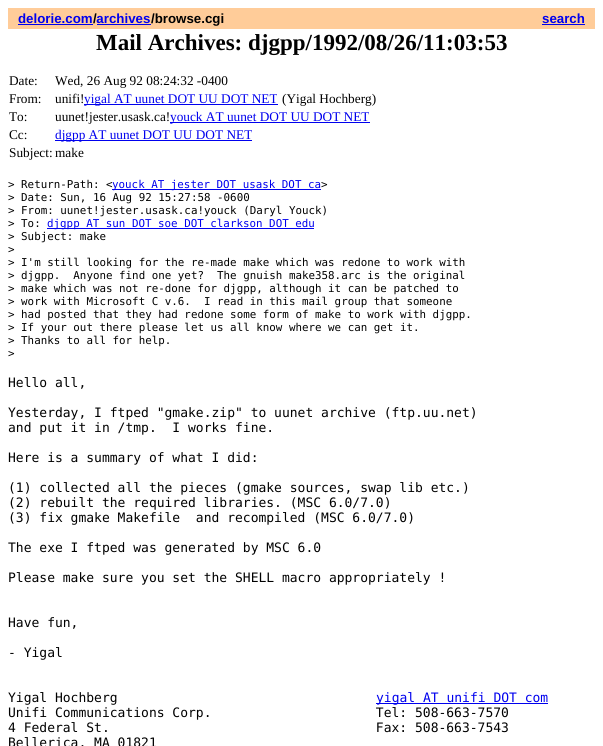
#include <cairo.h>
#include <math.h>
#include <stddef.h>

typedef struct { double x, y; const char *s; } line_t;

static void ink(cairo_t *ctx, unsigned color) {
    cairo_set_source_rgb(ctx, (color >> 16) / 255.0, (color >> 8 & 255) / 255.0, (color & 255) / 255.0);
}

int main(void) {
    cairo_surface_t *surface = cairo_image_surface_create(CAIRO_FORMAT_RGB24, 603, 746);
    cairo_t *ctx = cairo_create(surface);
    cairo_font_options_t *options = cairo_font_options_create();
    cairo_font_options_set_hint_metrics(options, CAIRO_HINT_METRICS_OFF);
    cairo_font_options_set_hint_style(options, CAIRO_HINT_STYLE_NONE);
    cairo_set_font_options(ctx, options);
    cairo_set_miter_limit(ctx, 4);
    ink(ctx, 0xFFFFFF);
    cairo_paint(ctx);
    ink(ctx, 0xFFCC99);
    cairo_rectangle(ctx, 8, 8, 587, 21);
    cairo_fill(ctx);
    cairo_select_font_face(ctx, "Liberation Sans", CAIRO_FONT_SLANT_NORMAL, CAIRO_FONT_WEIGHT_BOLD);
    cairo_set_font_size(ctx, 13.3);
    ink(ctx, 0x0000EE);
    cairo_move_to(ctx, 18, 23);
    cairo_show_text(ctx, "delorie.com archives");
    cairo_rectangle(ctx, 18, 24, 75, 1);
    cairo_fill(ctx);
    ink(ctx, 0x000000);
    cairo_move_to(ctx, 93, 23);
    cairo_show_text(ctx, "/");
    cairo_move_to(ctx, 151, 23);
    cairo_show_text(ctx, "/browse.cgi");
    ink(ctx, 0x0000EE);
    cairo_rectangle(ctx, 97, 24, 54, 1);
    cairo_fill(ctx);
    cairo_move_to(ctx, 542, 23);
    cairo_show_text(ctx, "search");
    cairo_rectangle(ctx, 542, 24, 43, 1);
    cairo_fill(ctx);
    cairo_select_font_face(ctx, "Liberation Serif", CAIRO_FONT_SLANT_NORMAL, CAIRO_FONT_WEIGHT_BOLD);
    cairo_set_font_size(ctx, 23);
    ink(ctx, 0x000000);
    cairo_move_to(ctx, 96, 50);
    cairo_show_text(ctx, "Mail Archives: djgpp/1992/08/26/11:03:53");
    cairo_select_font_face(ctx, "Liberation Serif", CAIRO_FONT_SLANT_NORMAL, CAIRO_FONT_WEIGHT_NORMAL);
    cairo_set_font_size(ctx, 13.3);
    {
        static const line_t items[] = {
            {9, 85, "Date:"},
            {55, 85, "Wed, 26 Aug 92 08:24:32 -0400"},
            {9, 103, "From:"},
            {55, 103, "unifi!"},
        };
        for (size_t i = 0; i < sizeof items / sizeof *items; i++) {
            cairo_move_to(ctx, items[i].x, items[i].y);
            cairo_show_text(ctx, items[i].s);
        }
    }
    ink(ctx, 0x0000EE);
    cairo_rectangle(ctx, 84, 104, 194, 1);
    cairo_fill(ctx);
    cairo_move_to(ctx, 84, 103);
    cairo_show_text(ctx, "yigal AT uunet DOT UU DOT NET");
    ink(ctx, 0x000000);
    {
        static const line_t items[] = {
            {282, 103, "(Yigal Hochberg)"},
            {9, 121, "To:"},
            {55, 121, "uunet!jester.usask.ca!"},
        };
        for (size_t i = 0; i < sizeof items / sizeof *items; i++) {
            cairo_move_to(ctx, items[i].x, items[i].y);
            cairo_show_text(ctx, items[i].s);
        }
    }
    ink(ctx, 0x0000EE);
    cairo_rectangle(ctx, 170, 122, 200, 1);
    cairo_fill(ctx);
    cairo_move_to(ctx, 170, 121);
    cairo_show_text(ctx, "youck AT uunet DOT UU DOT NET");
    ink(ctx, 0x000000);
    cairo_move_to(ctx, 9, 139);
    cairo_show_text(ctx, "Cc:");
    ink(ctx, 0x0000EE);
    cairo_rectangle(ctx, 55, 140, 197, 1);
    cairo_fill(ctx);
    cairo_move_to(ctx, 55, 139);
    cairo_show_text(ctx, "djgpp AT uunet DOT UU DOT NET");
    ink(ctx, 0x000000);
    cairo_move_to(ctx, 9, 157);
    cairo_show_text(ctx, "Subject:");
    cairo_move_to(ctx, 55, 157);
    cairo_show_text(ctx, "make");
    cairo_select_font_face(ctx, "DejaVu Sans Mono", CAIRO_FONT_SLANT_NORMAL, CAIRO_FONT_WEIGHT_NORMAL);
    cairo_set_font_size(ctx, 10.85);
    cairo_move_to(ctx, 8, 188);
    cairo_show_text(ctx, "> Return-Path: <");
    ink(ctx, 0x0000EE);
    cairo_rectangle(ctx, 112, 189, 209, 1);
    cairo_fill(ctx);
    cairo_move_to(ctx, 112, 188);
    cairo_show_text(ctx, "youck AT jester DOT usask DOT ca");
    ink(ctx, 0x000000);
    {
        static const line_t items[] = {
            {321, 188, ">"},
            {8, 201, "> Date: Sun, 16 Aug 92 15:27:58 -0600"},
            {8, 214, "> From: uunet!jester.usask.ca!youck (Daryl Youck)"},
            {8, 227, "> To:"},
        };
        for (size_t i = 0; i < sizeof items / sizeof *items; i++) {
            cairo_move_to(ctx, items[i].x, items[i].y);
            cairo_show_text(ctx, items[i].s);
        }
    }
    ink(ctx, 0x0000EE);
    cairo_rectangle(ctx, 47, 228, 267, 1);
    cairo_fill(ctx);
    cairo_move_to(ctx, 47, 227);
    cairo_show_text(ctx, "djgpp AT sun DOT soe DOT clarkson DOT edu");
    ink(ctx, 0x000000);
    {
        static const line_t items[] = {
            {8, 240, "> Subject: make"},
            {8, 253, ">"},
            {8, 266, "> I'm still looking for the re-made make which was redone to work with"},
            {8, 279, "> djgpp.  Anyone find one yet?  The gnuish make358.arc is the original"},
            {8, 292, "> make which was not re-done for djgpp, although it can be patched to"},
            {8, 305, "> work with Microsoft C v.6.  I read in this mail group that someone"},
            {8, 318, "> had posted that they had redone some form of make to work with djgpp."},
            {8, 331, "> If your out there please let us all know where we can get it."},
            {8, 344, "> Thanks to all for help."},
            {8, 357, ">"},
        };
        for (size_t i = 0; i < sizeof items / sizeof *items; i++) {
            cairo_move_to(ctx, items[i].x, items[i].y);
            cairo_show_text(ctx, items[i].s);
        }
    }
    cairo_set_font_size(ctx, 13);
    {
        static const line_t items[] = {
            {8, 387, "Hello all,"},
            {8, 417, "Yesterday, I ftped \"gmake.zip\" to uunet archive (ftp.uu.net)"},
            {8, 432, "and put it in /tmp.  I works fine."},
            {8, 462, "Here is a summary of what I did:"},
            {8, 492, "(1) collected all the pieces (gmake sources, swap lib etc.)"},
            {8, 507, "(2) rebuilt the required libraries. (MSC 6.0/7.0)"},
            {8, 522, "(3) fix gmake Makefile  and recompiled (MSC 6.0/7.0)"},
            {8, 552, "The exe I ftped was generated by MSC 6.0"},
            {8, 582, "Please make sure you set the SHELL macro appropriately !"},
            {8, 627, "Have fun,"},
            {8, 657, "- Yigal"},
            {8, 702, "Yigal Hochberg"},
        };
        for (size_t i = 0; i < sizeof items / sizeof *items; i++) {
            cairo_move_to(ctx, items[i].x, items[i].y);
            cairo_show_text(ctx, items[i].s);
        }
    }
    ink(ctx, 0x0000EE);
    cairo_rectangle(ctx, 376, 703, 172, 1);
    cairo_fill(ctx);
    cairo_move_to(ctx, 376, 702);
    cairo_show_text(ctx, "yigal AT unifi DOT com");
    ink(ctx, 0x000000);
    {
        static const line_t items[] = {
            {8, 717, "Unifi Communications Corp.                     Tel: 508-663-7570"},
            {8, 732, "4 Federal St.                                  Fax: 508-663-7543"},
            {8, 747, "Bellerica, MA 01821"},
        };
        for (size_t i = 0; i < sizeof items / sizeof *items; i++) {
            cairo_move_to(ctx, items[i].x, items[i].y);
            cairo_show_text(ctx, items[i].s);
        }
    }
    cairo_surface_write_to_png(surface, "image.png");
    cairo_font_options_destroy(options);
    cairo_destroy(ctx);
    cairo_surface_destroy(surface);
    return 0;
}
